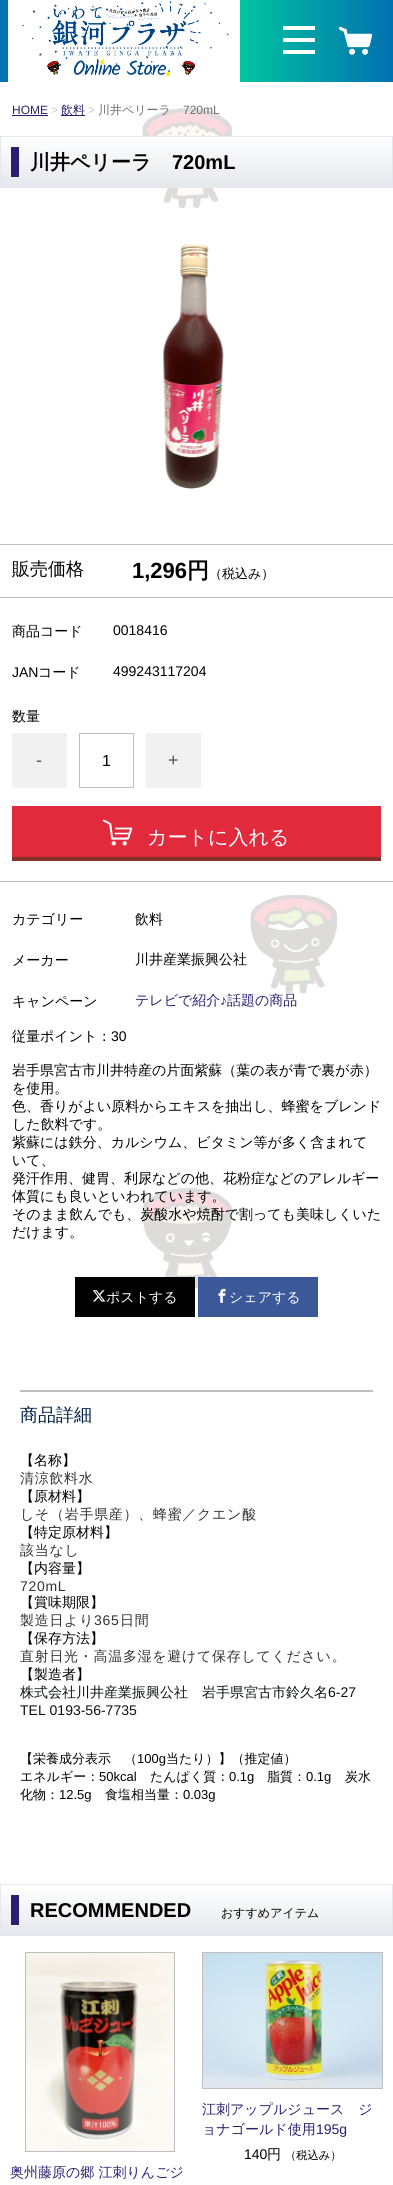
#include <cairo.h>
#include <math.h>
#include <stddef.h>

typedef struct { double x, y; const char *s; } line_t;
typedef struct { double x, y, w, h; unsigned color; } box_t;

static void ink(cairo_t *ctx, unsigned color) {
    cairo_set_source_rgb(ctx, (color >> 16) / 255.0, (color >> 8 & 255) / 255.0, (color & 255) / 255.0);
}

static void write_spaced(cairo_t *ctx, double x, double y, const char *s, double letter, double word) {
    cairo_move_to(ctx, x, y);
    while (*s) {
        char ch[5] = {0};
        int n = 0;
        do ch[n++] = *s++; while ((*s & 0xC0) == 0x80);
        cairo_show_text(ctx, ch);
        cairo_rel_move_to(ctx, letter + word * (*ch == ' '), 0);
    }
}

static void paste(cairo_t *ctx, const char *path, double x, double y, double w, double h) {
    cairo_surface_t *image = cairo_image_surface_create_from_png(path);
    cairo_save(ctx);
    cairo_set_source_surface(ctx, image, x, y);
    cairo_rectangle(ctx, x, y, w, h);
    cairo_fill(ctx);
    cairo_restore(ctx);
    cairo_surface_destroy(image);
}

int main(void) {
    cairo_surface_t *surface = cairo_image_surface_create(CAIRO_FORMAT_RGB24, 393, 2185);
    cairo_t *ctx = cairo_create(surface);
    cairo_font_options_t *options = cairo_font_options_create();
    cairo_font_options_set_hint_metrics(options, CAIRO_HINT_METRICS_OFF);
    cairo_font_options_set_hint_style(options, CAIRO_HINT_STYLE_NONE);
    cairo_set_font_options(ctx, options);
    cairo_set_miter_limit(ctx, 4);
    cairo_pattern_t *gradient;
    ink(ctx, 0xFFFFFF);
    cairo_paint(ctx);
    paste(ctx, "media/1.png", 142, 108, 196, 1966);
    gradient = cairo_pattern_create_linear(0, 41, 393, 41);
    cairo_pattern_add_color_stop_rgba(gradient, 0, 0, 0.443, 0.694, 1);
    cairo_pattern_add_color_stop_rgba(gradient, 0.5, 0.008, 0.863, 0.604, 1);
    cairo_pattern_add_color_stop_rgba(gradient, 1, 0, 0.443, 0.694, 1);
    cairo_set_source(ctx, gradient);
    cairo_pattern_destroy(gradient);
    cairo_rectangle(ctx, 0, 0, 393, 82);
    cairo_fill(ctx);
    paste(ctx, "media/2.png", 8, 0, 232, 82);
    {
        static const box_t items[] = {
            {283, 38, 32, 4, 0xFFFFFF},
            {283, 26, 32, 4, 0xFFFFFF},
            {283, 50, 32, 4, 0xFFFFFF},
        };
        for (size_t i = 0; i < sizeof items / sizeof *items; i++) {
            ink(ctx, items[i].color);
            cairo_rectangle(ctx, items[i].x, items[i].y, items[i].w, items[i].h);
            cairo_fill(ctx);
        }
    }
    paste(ctx, "media/3.png", 339, 26, 34, 29);
    cairo_select_font_face(ctx, "Liberation Sans", CAIRO_FONT_SLANT_NORMAL, CAIRO_FONT_WEIGHT_NORMAL);
    cairo_set_font_size(ctx, 12);
    ink(ctx, 0x2C1F71);
    cairo_move_to(ctx, 12, 114);
    cairo_show_text(ctx, "HOME");
    cairo_rectangle(ctx, 12, 115, 36, 1);
    cairo_fill(ctx);
    ink(ctx, 0xC9C9C9);
    cairo_move_to(ctx, 51, 114);
    cairo_show_text(ctx, ">");
    ink(ctx, 0x2C1F71);
    cairo_rectangle(ctx, 61, 115, 24, 1);
    cairo_fill(ctx);
    cairo_select_font_face(ctx, "WenQuanYi Zen Hei Medium", CAIRO_FONT_SLANT_NORMAL, CAIRO_FONT_WEIGHT_NORMAL);
    cairo_move_to(ctx, 61, 114);
    cairo_show_text(ctx, "飲料");
    cairo_select_font_face(ctx, "Liberation Sans", CAIRO_FONT_SLANT_NORMAL, CAIRO_FONT_WEIGHT_NORMAL);
    ink(ctx, 0xC9C9C9);
    cairo_move_to(ctx, 88, 114);
    cairo_show_text(ctx, ">");
    cairo_select_font_face(ctx, "WenQuanYi Zen Hei Medium", CAIRO_FONT_SLANT_NORMAL, CAIRO_FONT_WEIGHT_NORMAL);
    ink(ctx, 0x6D6D72);
    cairo_move_to(ctx, 98, 114);
    cairo_show_text(ctx, "川井ペリーラ");
    cairo_select_font_face(ctx, "Liberation Sans", CAIRO_FONT_SLANT_NORMAL, CAIRO_FONT_WEIGHT_NORMAL);
    cairo_move_to(ctx, 183, 114);
    cairo_show_text(ctx, "720mL");
    gradient = cairo_pattern_create_linear(197, 137, 197, 187);
    cairo_pattern_add_color_stop_rgba(gradient, 0, 1, 1, 1, 1);
    cairo_pattern_add_color_stop_rgba(gradient, 1, 0.898, 0.91, 0.925, 1);
    cairo_set_source(ctx, gradient);
    cairo_pattern_destroy(gradient);
    cairo_rectangle(ctx, 1, 137, 391, 50);
    cairo_fill(ctx);
    cairo_rectangle(ctx, 0.5, 136.5, 392, 51);
    ink(ctx, 0xE5E8EC);
    cairo_set_line_width(ctx, 1);
    cairo_stroke(ctx);
    ink(ctx, 0x2C1F71);
    cairo_rectangle(ctx, 11, 147, 8, 30);
    cairo_fill(ctx);
    cairo_select_font_face(ctx, "WenQuanYi Zen Hei", CAIRO_FONT_SLANT_NORMAL, CAIRO_FONT_WEIGHT_BOLD);
    cairo_set_font_size(ctx, 20);
    ink(ctx, 0x000000);
    cairo_move_to(ctx, 30, 169);
    cairo_show_text(ctx, "川井ペリーラ");
    cairo_select_font_face(ctx, "Liberation Sans", CAIRO_FONT_SLANT_NORMAL, CAIRO_FONT_WEIGHT_BOLD);
    cairo_move_to(ctx, 172, 169);
    cairo_show_text(ctx, "720mL");
    paste(ctx, "media/4.png", 163, 244, 61, 245);
    ink(ctx, 0xBFBFBF);
    cairo_rectangle(ctx, 0, 544, 393, 1);
    cairo_fill(ctx);
    cairo_rectangle(ctx, 0, 597, 393, 1);
    cairo_fill(ctx);
    cairo_select_font_face(ctx, "WenQuanYi Zen Hei Medium", CAIRO_FONT_SLANT_NORMAL, CAIRO_FONT_WEIGHT_NORMAL);
    cairo_set_font_size(ctx, 18);
    ink(ctx, 0x000000);
    cairo_move_to(ctx, 12, 575);
    cairo_show_text(ctx, "販売価格");
    cairo_select_font_face(ctx, "Liberation Sans", CAIRO_FONT_SLANT_NORMAL, CAIRO_FONT_WEIGHT_BOLD);
    cairo_set_font_size(ctx, 22);
    cairo_move_to(ctx, 132, 578);
    cairo_show_text(ctx, "1,296");
    cairo_select_font_face(ctx, "WenQuanYi Zen Hei", CAIRO_FONT_SLANT_NORMAL, CAIRO_FONT_WEIGHT_BOLD);
    cairo_move_to(ctx, 187, 578);
    cairo_show_text(ctx, "円");
    cairo_select_font_face(ctx, "WenQuanYi Zen Hei Medium", CAIRO_FONT_SLANT_NORMAL, CAIRO_FONT_WEIGHT_NORMAL);
    cairo_set_font_size(ctx, 13);
    cairo_move_to(ctx, 209, 578);
    cairo_show_text(ctx, "（税込み）");
    cairo_set_font_size(ctx, 14);
    cairo_move_to(ctx, 12, 636);
    cairo_show_text(ctx, "商品コード");
    cairo_select_font_face(ctx, "Liberation Sans", CAIRO_FONT_SLANT_NORMAL, CAIRO_FONT_WEIGHT_NORMAL);
    cairo_move_to(ctx, 113, 635);
    cairo_show_text(ctx, "0018416");
    cairo_move_to(ctx, 12, 677);
    cairo_show_text(ctx, "JAN");
    cairo_select_font_face(ctx, "WenQuanYi Zen Hei Medium", CAIRO_FONT_SLANT_NORMAL, CAIRO_FONT_WEIGHT_NORMAL);
    cairo_move_to(ctx, 38, 677);
    cairo_show_text(ctx, "コード");
    cairo_select_font_face(ctx, "Liberation Sans", CAIRO_FONT_SLANT_NORMAL, CAIRO_FONT_WEIGHT_NORMAL);
    cairo_move_to(ctx, 113, 676);
    cairo_show_text(ctx, "499243117204");
    ink(ctx, 0xBFBFBF);
    cairo_rectangle(ctx, 0, 881, 393, 1);
    cairo_fill(ctx);
    cairo_select_font_face(ctx, "WenQuanYi Zen Hei Medium", CAIRO_FONT_SLANT_NORMAL, CAIRO_FONT_WEIGHT_NORMAL);
    ink(ctx, 0x000000);
    cairo_move_to(ctx, 12, 721);
    cairo_show_text(ctx, "数量");
    ink(ctx, 0xF1F1F1);
    cairo_rectangle(ctx, 12, 733, 55, 55);
    cairo_fill(ctx);
    cairo_select_font_face(ctx, "Liberation Sans", CAIRO_FONT_SLANT_NORMAL, CAIRO_FONT_WEIGHT_NORMAL);
    cairo_set_font_size(ctx, 18);
    ink(ctx, 0x545454);
    cairo_move_to(ctx, 36, 766);
    cairo_show_text(ctx, "-");
    cairo_rectangle(ctx, 79.5, 733.5, 54, 54);
    ink(ctx, 0xBFBFBF);
    cairo_stroke(ctx);
    cairo_set_font_size(ctx, 16);
    ink(ctx, 0x000000);
    cairo_move_to(ctx, 102, 766);
    cairo_show_text(ctx, "1");
    ink(ctx, 0xF1F1F1);
    cairo_rectangle(ctx, 146, 733, 55, 55);
    cairo_fill(ctx);
    cairo_set_font_size(ctx, 18);
    ink(ctx, 0x545454);
    cairo_move_to(ctx, 168, 766);
    cairo_show_text(ctx, "+");
    ink(ctx, 0xE22A3D);
    cairo_rectangle(ctx, 12, 806, 369, 51);
    cairo_fill(ctx);
    ink(ctx, 0x85312B);
    cairo_rectangle(ctx, 12, 857, 369, 4);
    cairo_fill(ctx);
    paste(ctx, "media/5.png", 103, 819, 30, 27);
    cairo_select_font_face(ctx, "WenQuanYi Zen Hei Medium", CAIRO_FONT_SLANT_NORMAL, CAIRO_FONT_WEIGHT_NORMAL);
    cairo_set_font_size(ctx, 20);
    ink(ctx, 0xFFFFFF);
    cairo_move_to(ctx, 147, 844);
    cairo_show_text(ctx, "カートに入れる");
    cairo_set_font_size(ctx, 14);
    ink(ctx, 0x000000);
    {
        static const line_t items[] = {
            {12, 924, "カテゴリー"},
            {135, 924, "飲料"},
            {12, 965, "メーカー"},
            {135, 964, "川井産業振興公社"},
            {12, 1006, "キャンペーン"},
        };
        for (size_t i = 0; i < sizeof items / sizeof *items; i++) {
            cairo_move_to(ctx, items[i].x, items[i].y);
            cairo_show_text(ctx, items[i].s);
        }
    }
    ink(ctx, 0x2C1F71);
    cairo_move_to(ctx, 135, 1005);
    cairo_show_text(ctx, "テレビで紹介");
    cairo_select_font_face(ctx, "Liberation Sans", CAIRO_FONT_SLANT_NORMAL, CAIRO_FONT_WEIGHT_NORMAL);
    cairo_move_to(ctx, 220, 1005);
    cairo_show_text(ctx, "♪");
    cairo_select_font_face(ctx, "WenQuanYi Zen Hei Medium", CAIRO_FONT_SLANT_NORMAL, CAIRO_FONT_WEIGHT_NORMAL);
    cairo_move_to(ctx, 227, 1005);
    cairo_show_text(ctx, "話題の商品");
    ink(ctx, 0x000000);
    cairo_move_to(ctx, 12, 1041);
    cairo_show_text(ctx, "従量ポイント：");
    cairo_select_font_face(ctx, "Liberation Sans", CAIRO_FONT_SLANT_NORMAL, CAIRO_FONT_WEIGHT_NORMAL);
    cairo_move_to(ctx, 111, 1041);
    cairo_show_text(ctx, "30");
    cairo_select_font_face(ctx, "WenQuanYi Zen Hei Medium", CAIRO_FONT_SLANT_NORMAL, CAIRO_FONT_WEIGHT_NORMAL);
    {
        static const line_t items[] = {
            {12, 1075, "岩手県宮古市川井特産の片面紫蘇（葉の表が青で裏が赤）"},
            {12, 1093, "を使用。"},
            {12, 1111, "色、香りがよい原料からエキスを抽出し、蜂蜜をブレンド"},
            {12, 1129, "した飲料です。"},
            {12, 1147, "紫蘇には鉄分、カルシウム、ビタミン等が多く含まれて"},
            {12, 1165, "いて、"},
            {12, 1183, "発汗作用、健胃、利尿などの他、花粉症などのアレルギー"},
            {12, 1201, "体質にも良いといわれています。"},
            {12, 1219, "そのまま飲んでも、炭酸水や焼酎で割っても美味しくいた"},
            {12, 1237, "だけます。"},
        };
        for (size_t i = 0; i < sizeof items / sizeof *items; i++) {
            cairo_move_to(ctx, items[i].x, items[i].y);
            cairo_show_text(ctx, items[i].s);
        }
    }
    cairo_rectangle(ctx, 75, 1277, 120, 40);
    cairo_fill(ctx);
    paste(ctx, "media/6.png", 92, 1290, 14, 12);
    ink(ctx, 0xFFFFFF);
    cairo_move_to(ctx, 106, 1302);
    cairo_show_text(ctx, "ポストする");
    ink(ctx, 0x3B5998);
    cairo_rectangle(ctx, 198, 1277, 120, 40);
    cairo_fill(ctx);
    paste(ctx, "media/7.png", 218, 1288, 8, 15);
    ink(ctx, 0xFFFFFF);
    cairo_move_to(ctx, 229, 1302);
    cairo_show_text(ctx, "シェアする");
    ink(ctx, 0xBFBFBF);
    cairo_rectangle(ctx, 20, 1390, 353, 2);
    cairo_fill(ctx);
    cairo_set_font_size(ctx, 18);
    ink(ctx, 0x001E43);
    cairo_move_to(ctx, 20, 1421);
    cairo_show_text(ctx, "商品詳細");
    cairo_set_font_size(ctx, 14);
    ink(ctx, 0x000000);
    cairo_move_to(ctx, 20, 1465);
    cairo_show_text(ctx, "【名称】");
    ink(ctx, 0x333333);
    write_spaced(ctx, 20, 1483, "清涼飲料水", 0.7, 0);
    ink(ctx, 0x000000);
    cairo_move_to(ctx, 20, 1501);
    cairo_show_text(ctx, "【原材料】");
    ink(ctx, 0x333333);
    write_spaced(ctx, 20, 1519, "しそ（岩手県産）、蜂蜜／クエン酸", 0.7, 0);
    ink(ctx, 0x000000);
    cairo_move_to(ctx, 20, 1537);
    cairo_show_text(ctx, "【特定原材料】");
    ink(ctx, 0x333333);
    write_spaced(ctx, 20, 1555, "該当なし", 0.7, 0);
    ink(ctx, 0x000000);
    cairo_move_to(ctx, 20, 1573);
    cairo_show_text(ctx, "【内容量】");
    cairo_select_font_face(ctx, "Liberation Sans", CAIRO_FONT_SLANT_NORMAL, CAIRO_FONT_WEIGHT_NORMAL);
    ink(ctx, 0x333333);
    write_spaced(ctx, 20, 1591, "720mL", 0.7, 0);
    cairo_select_font_face(ctx, "WenQuanYi Zen Hei Medium", CAIRO_FONT_SLANT_NORMAL, CAIRO_FONT_WEIGHT_NORMAL);
    ink(ctx, 0x000000);
    cairo_move_to(ctx, 20, 1607);
    cairo_show_text(ctx, "【賞味期限】");
    ink(ctx, 0x333333);
    write_spaced(ctx, 20, 1625, "製造日より", 0.7, 0);
    cairo_select_font_face(ctx, "Liberation Sans", CAIRO_FONT_SLANT_NORMAL, CAIRO_FONT_WEIGHT_NORMAL);
    write_spaced(ctx, 94, 1625, "365", 0.7, 0);
    cairo_select_font_face(ctx, "WenQuanYi Zen Hei Medium", CAIRO_FONT_SLANT_NORMAL, CAIRO_FONT_WEIGHT_NORMAL);
    write_spaced(ctx, 120, 1625, "日間", 0.7, 0);
    ink(ctx, 0x000000);
    cairo_move_to(ctx, 20, 1643);
    cairo_show_text(ctx, "【保存方法】");
    ink(ctx, 0x333333);
    write_spaced(ctx, 20, 1661, "直射日光・高温多湿を避けて保存してください。", 0.7, 0);
    ink(ctx, 0x000000);
    cairo_move_to(ctx, 20, 1679);
    cairo_show_text(ctx, "【製造者】");
    ink(ctx, 0x0F1111);
    cairo_move_to(ctx, 20, 1697);
    cairo_show_text(ctx, "株式会社川井産業振興公社　岩手県宮古市鈴久名");
    cairo_select_font_face(ctx, "Liberation Sans", CAIRO_FONT_SLANT_NORMAL, CAIRO_FONT_WEIGHT_NORMAL);
    cairo_move_to(ctx, 328, 1697);
    cairo_show_text(ctx, "6-27");
    cairo_move_to(ctx, 20, 1715);
    cairo_show_text(ctx, "TEL 0193-56-7735");
    cairo_select_font_face(ctx, "WenQuanYi Zen Hei Medium", CAIRO_FONT_SLANT_NORMAL, CAIRO_FONT_WEIGHT_NORMAL);
    cairo_set_font_size(ctx, 13);
    ink(ctx, 0x000000);
    cairo_move_to(ctx, 20, 1763);
    cairo_show_text(ctx, "【栄養成分表示　（");
    cairo_select_font_face(ctx, "Liberation Sans", CAIRO_FONT_SLANT_NORMAL, CAIRO_FONT_WEIGHT_NORMAL);
    cairo_move_to(ctx, 137, 1763);
    cairo_show_text(ctx, "100g");
    cairo_select_font_face(ctx, "WenQuanYi Zen Hei Medium", CAIRO_FONT_SLANT_NORMAL, CAIRO_FONT_WEIGHT_NORMAL);
    cairo_move_to(ctx, 166, 1763);
    cairo_show_text(ctx, "当たり）】（推定値）");
    cairo_move_to(ctx, 20, 1781);
    cairo_show_text(ctx, "エネルギー：");
    cairo_select_font_face(ctx, "Liberation Sans", CAIRO_FONT_SLANT_NORMAL, CAIRO_FONT_WEIGHT_NORMAL);
    cairo_move_to(ctx, 99, 1781);
    cairo_show_text(ctx, "50kcal");
    cairo_select_font_face(ctx, "WenQuanYi Zen Hei Medium", CAIRO_FONT_SLANT_NORMAL, CAIRO_FONT_WEIGHT_NORMAL);
    cairo_move_to(ctx, 150, 1781);
    cairo_show_text(ctx, "たんぱく質：");
    cairo_select_font_face(ctx, "Liberation Sans", CAIRO_FONT_SLANT_NORMAL, CAIRO_FONT_WEIGHT_NORMAL);
    cairo_move_to(ctx, 229, 1781);
    cairo_show_text(ctx, "0.1g");
    cairo_select_font_face(ctx, "WenQuanYi Zen Hei Medium", CAIRO_FONT_SLANT_NORMAL, CAIRO_FONT_WEIGHT_NORMAL);
    cairo_move_to(ctx, 267, 1781);
    cairo_show_text(ctx, "脂質：");
    cairo_select_font_face(ctx, "Liberation Sans", CAIRO_FONT_SLANT_NORMAL, CAIRO_FONT_WEIGHT_NORMAL);
    cairo_move_to(ctx, 306, 1781);
    cairo_show_text(ctx, "0.1g");
    cairo_select_font_face(ctx, "WenQuanYi Zen Hei Medium", CAIRO_FONT_SLANT_NORMAL, CAIRO_FONT_WEIGHT_NORMAL);
    cairo_move_to(ctx, 345, 1781);
    cairo_show_text(ctx, "炭水");
    cairo_move_to(ctx, 20, 1799);
    cairo_show_text(ctx, "化物：");
    cairo_select_font_face(ctx, "Liberation Sans", CAIRO_FONT_SLANT_NORMAL, CAIRO_FONT_WEIGHT_NORMAL);
    cairo_move_to(ctx, 59, 1799);
    cairo_show_text(ctx, "12.5g");
    cairo_select_font_face(ctx, "WenQuanYi Zen Hei Medium", CAIRO_FONT_SLANT_NORMAL, CAIRO_FONT_WEIGHT_NORMAL);
    cairo_move_to(ctx, 105, 1799);
    cairo_show_text(ctx, "食塩相当量：");
    cairo_select_font_face(ctx, "Liberation Sans", CAIRO_FONT_SLANT_NORMAL, CAIRO_FONT_WEIGHT_NORMAL);
    cairo_move_to(ctx, 183, 1799);
    cairo_show_text(ctx, "0.03g");
    gradient = cairo_pattern_create_linear(197, 1885, 197, 1935);
    cairo_pattern_add_color_stop_rgba(gradient, 0, 1, 1, 1, 1);
    cairo_pattern_add_color_stop_rgba(gradient, 1, 0.898, 0.91, 0.925, 1);
    cairo_set_source(ctx, gradient);
    cairo_pattern_destroy(gradient);
    cairo_rectangle(ctx, 1, 1890, 391, 45);
    cairo_fill(ctx);
    cairo_rectangle(ctx, 0.5, 1884.5, 392, 51);
    ink(ctx, 0xE5E8EC);
    cairo_stroke(ctx);
    ink(ctx, 0x2C1F71);
    cairo_rectangle(ctx, 11, 1895, 8, 30);
    cairo_fill(ctx);
    cairo_select_font_face(ctx, "Liberation Sans", CAIRO_FONT_SLANT_NORMAL, CAIRO_FONT_WEIGHT_BOLD);
    cairo_set_font_size(ctx, 20);
    ink(ctx, 0x000000);
    cairo_move_to(ctx, 30, 1917);
    cairo_show_text(ctx, "RECOMMENDED");
    cairo_select_font_face(ctx, "WenQuanYi Zen Hei Medium", CAIRO_FONT_SLANT_NORMAL, CAIRO_FONT_WEIGHT_NORMAL);
    cairo_set_font_size(ctx, 12);
    cairo_move_to(ctx, 221, 1917);
    cairo_show_text(ctx, "おすすめアイテム");
    cairo_rectangle(ctx, 202.5, 1952.5, 180, 136);
    ink(ctx, 0xBFBFBF);
    cairo_stroke(ctx);
    paste(ctx, "media/8.png", 203, 1953, 179, 135);
    cairo_set_font_size(ctx, 14);
    ink(ctx, 0x2C1F71);
    cairo_move_to(ctx, 202, 2114);
    cairo_show_text(ctx, "江刺アップルジュース　ジ");
    cairo_move_to(ctx, 202, 2134);
    cairo_show_text(ctx, "ョナゴールド使用");
    cairo_select_font_face(ctx, "Liberation Sans", CAIRO_FONT_SLANT_NORMAL, CAIRO_FONT_WEIGHT_NORMAL);
    cairo_move_to(ctx, 316, 2134);
    cairo_show_text(ctx, "195g");
    ink(ctx, 0x000000);
    cairo_move_to(ctx, 244, 2159);
    cairo_show_text(ctx, "140");
    cairo_select_font_face(ctx, "WenQuanYi Zen Hei Medium", CAIRO_FONT_SLANT_NORMAL, CAIRO_FONT_WEIGHT_NORMAL);
    cairo_move_to(ctx, 267, 2159);
    cairo_show_text(ctx, "円");
    cairo_set_font_size(ctx, 11.25);
    cairo_move_to(ctx, 285, 2159);
    cairo_show_text(ctx, "（税込み）");
    cairo_rectangle(ctx, 25.5, 1952.5, 149, 199);
    ink(ctx, 0xBFBFBF);
    cairo_stroke(ctx);
    paste(ctx, "media/9.png", 26, 1953, 148, 198);
    cairo_set_font_size(ctx, 14);
    ink(ctx, 0x2C1F71);
    cairo_move_to(ctx, 10, 2177);
    cairo_show_text(ctx, "奥州藤原の郷 江刺りんごジ");
    cairo_surface_write_to_png(surface, "image.png");
    cairo_font_options_destroy(options);
    cairo_destroy(ctx);
    cairo_surface_destroy(surface);
    return 0;
}
